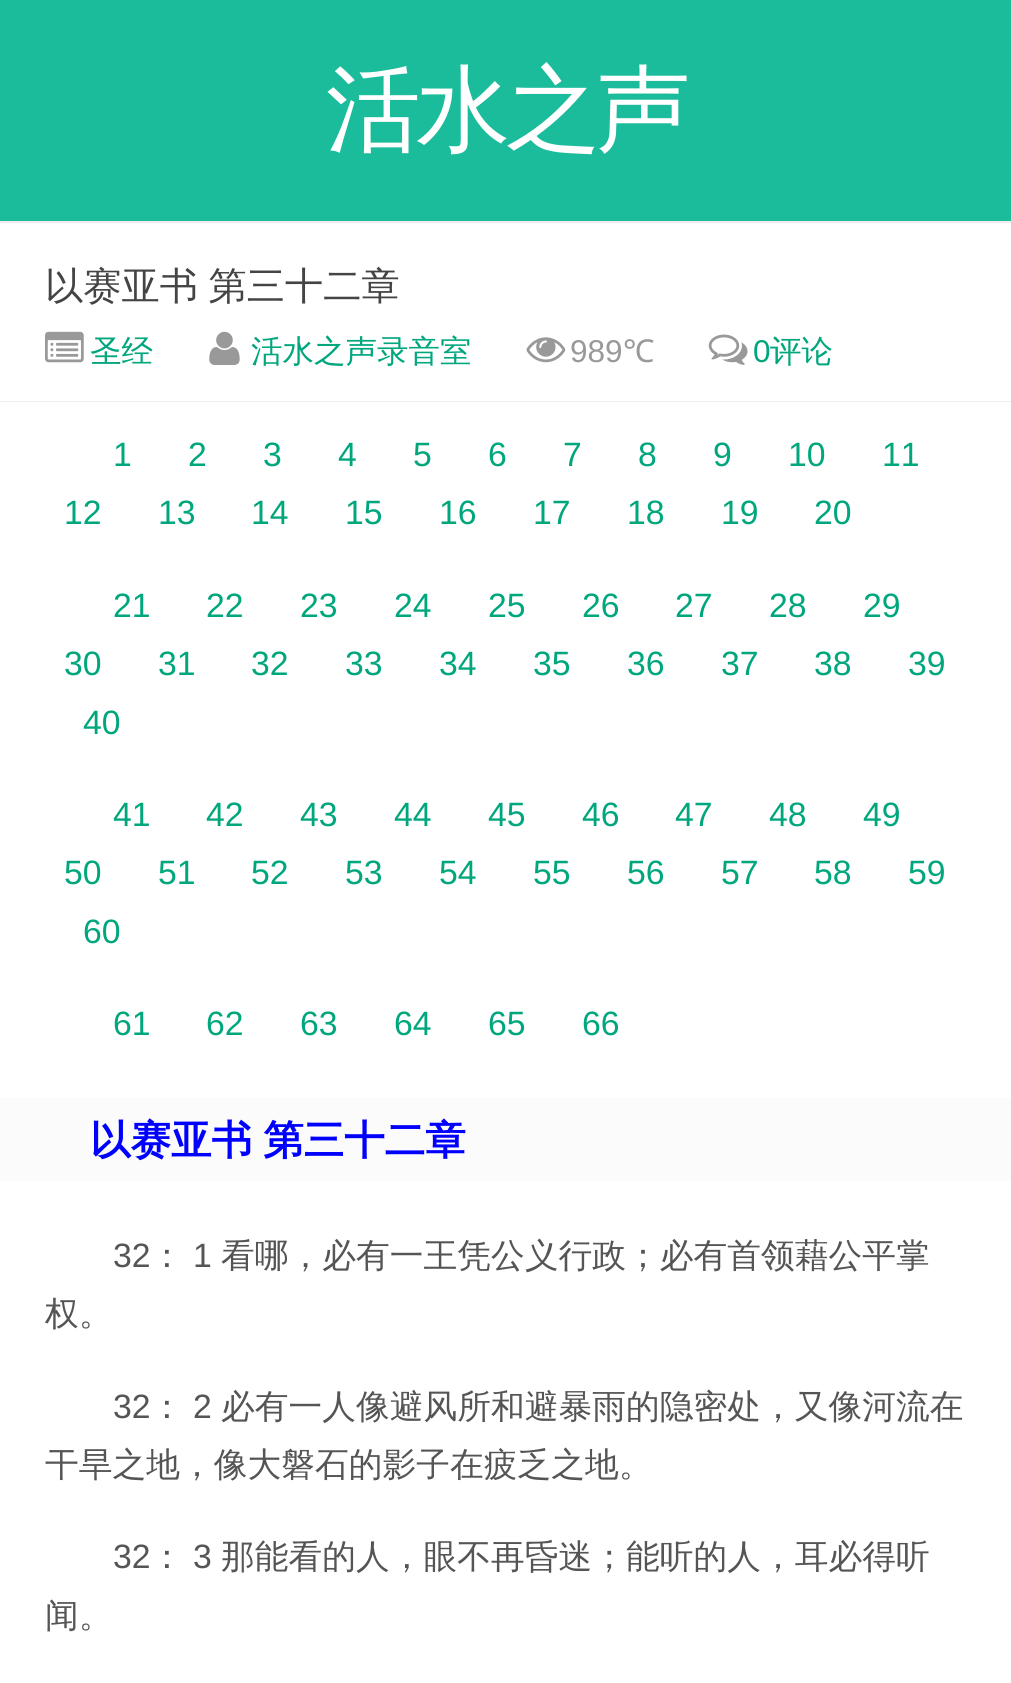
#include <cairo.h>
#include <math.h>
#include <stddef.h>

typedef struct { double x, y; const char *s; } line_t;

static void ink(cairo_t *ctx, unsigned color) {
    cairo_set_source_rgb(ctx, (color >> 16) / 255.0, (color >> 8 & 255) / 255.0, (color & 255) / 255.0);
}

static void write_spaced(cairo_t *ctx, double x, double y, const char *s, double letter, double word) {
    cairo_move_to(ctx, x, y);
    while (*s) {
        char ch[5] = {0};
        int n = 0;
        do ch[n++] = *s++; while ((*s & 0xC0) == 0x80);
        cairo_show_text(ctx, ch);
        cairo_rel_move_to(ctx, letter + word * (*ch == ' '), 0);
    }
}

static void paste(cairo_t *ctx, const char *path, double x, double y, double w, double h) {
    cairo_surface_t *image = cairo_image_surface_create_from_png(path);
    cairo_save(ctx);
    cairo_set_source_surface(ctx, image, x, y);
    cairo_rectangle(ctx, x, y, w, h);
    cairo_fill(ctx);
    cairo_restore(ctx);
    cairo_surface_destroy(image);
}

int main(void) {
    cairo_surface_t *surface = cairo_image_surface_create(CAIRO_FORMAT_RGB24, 1011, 1683);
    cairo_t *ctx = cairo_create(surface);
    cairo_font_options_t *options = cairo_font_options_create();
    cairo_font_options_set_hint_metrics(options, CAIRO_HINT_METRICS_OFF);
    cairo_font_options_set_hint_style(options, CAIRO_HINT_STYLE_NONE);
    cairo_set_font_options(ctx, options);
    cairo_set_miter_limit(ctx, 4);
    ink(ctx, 0xEEEEEE);
    cairo_paint(ctx);
    ink(ctx, 0x1ABC9C);
    cairo_rectangle(ctx, 0, 0, 1011, 221);
    cairo_fill(ctx);
    cairo_select_font_face(ctx, "WenQuanYi Zen Hei Medium", CAIRO_FONT_SLANT_NORMAL, CAIRO_FONT_WEIGHT_NORMAL);
    cairo_set_font_size(ctx, 94.5);
    ink(ctx, 0xFFFFFF);
    write_spaced(ctx, 326, 142, "活水之声", -4.5, 0);
    cairo_rectangle(ctx, 0, 223, 1011, 178);
    cairo_fill(ctx);
    cairo_set_font_size(ctx, 38.25);
    ink(ctx, 0x444444);
    write_spaced(ctx, 45, 299, "以赛亚书 第三十二章", 0, -1);
    paste(ctx, "media/1.png", 45, 331, 39, 32);
    cairo_set_font_size(ctx, 31.5);
    ink(ctx, 0x00A67C);
    cairo_move_to(ctx, 90, 362);
    cairo_show_text(ctx, "圣经");
    paste(ctx, "media/2.png", 209, 331, 31, 34);
    cairo_move_to(ctx, 251, 362);
    cairo_show_text(ctx, "活水之声录音室");
    paste(ctx, "media/3.png", 526, 337, 40, 26);
    cairo_select_font_face(ctx, "Liberation Sans", CAIRO_FONT_SLANT_NORMAL, CAIRO_FONT_WEIGHT_NORMAL);
    ink(ctx, 0x999999);
    cairo_move_to(ctx, 570, 362);
    cairo_show_text(ctx, "989");
    cairo_select_font_face(ctx, "Noto Sans", CAIRO_FONT_SLANT_NORMAL, CAIRO_FONT_WEIGHT_NORMAL);
    cairo_move_to(ctx, 623, 362);
    cairo_show_text(ctx, "℃");
    paste(ctx, "media/4.png", 708, 334, 40, 31);
    cairo_select_font_face(ctx, "Liberation Sans", CAIRO_FONT_SLANT_NORMAL, CAIRO_FONT_WEIGHT_NORMAL);
    ink(ctx, 0x00A67C);
    cairo_move_to(ctx, 753, 362);
    cairo_show_text(ctx, "0");
    cairo_select_font_face(ctx, "WenQuanYi Zen Hei Medium", CAIRO_FONT_SLANT_NORMAL, CAIRO_FONT_WEIGHT_NORMAL);
    cairo_move_to(ctx, 770, 362);
    cairo_show_text(ctx, "评论");
    ink(ctx, 0xFFFFFF);
    cairo_rectangle(ctx, 0, 402, 1011, 1281);
    cairo_fill(ctx);
    cairo_select_font_face(ctx, "Liberation Sans", CAIRO_FONT_SLANT_NORMAL, CAIRO_FONT_WEIGHT_NORMAL);
    cairo_set_font_size(ctx, 33.75);
    ink(ctx, 0x00A67C);
    {
        static const line_t items[] = {
            {113, 466, "1"},
            {188, 466, "2"},
            {263, 466, "3"},
            {338, 466, "4"},
            {413, 466, "5"},
            {488, 466, "6"},
            {563, 466, "7"},
            {638, 466, "8"},
            {713, 466, "9"},
            {788, 466, "10"},
            {882, 466, "11"},
            {64, 524, "12"},
            {158, 524, "13"},
            {251, 524, "14"},
            {345, 524, "15"},
            {439, 524, "16"},
            {533, 524, "17"},
            {627, 524, "18"},
            {721, 524, "19"},
            {814, 524, "20"},
            {113, 617, "21"},
            {206, 617, "22"},
            {300, 617, "23"},
            {394, 617, "24"},
            {488, 617, "25"},
            {582, 617, "26"},
            {675, 617, "27"},
            {769, 617, "28"},
            {863, 617, "29"},
            {64, 675, "30"},
            {158, 675, "31"},
            {251, 675, "32"},
            {345, 675, "33"},
            {439, 675, "34"},
            {533, 675, "35"},
            {627, 675, "36"},
            {721, 675, "37"},
            {814, 675, "38"},
            {908, 675, "39"},
            {83, 734, "40"},
            {113, 826, "41"},
            {206, 826, "42"},
            {300, 826, "43"},
            {394, 826, "44"},
            {488, 826, "45"},
            {582, 826, "46"},
            {675, 826, "47"},
            {769, 826, "48"},
            {863, 826, "49"},
            {64, 884, "50"},
            {158, 884, "51"},
            {251, 884, "52"},
            {345, 884, "53"},
            {439, 884, "54"},
            {533, 884, "55"},
            {627, 884, "56"},
            {721, 884, "57"},
            {814, 884, "58"},
            {908, 884, "59"},
            {83, 943, "60"},
            {113, 1035, "61"},
            {206, 1035, "62"},
            {300, 1035, "63"},
            {394, 1035, "64"},
            {488, 1035, "65"},
            {582, 1035, "66"},
        };
        for (size_t i = 0; i < sizeof items / sizeof *items; i++) {
            cairo_move_to(ctx, items[i].x, items[i].y);
            cairo_show_text(ctx, items[i].s);
        }
    }
    ink(ctx, 0xFBFBFB);
    cairo_rectangle(ctx, 0, 1098, 1011, 83);
    cairo_fill(ctx);
    cairo_select_font_face(ctx, "WenQuanYi Zen Hei", CAIRO_FONT_SLANT_NORMAL, CAIRO_FONT_WEIGHT_BOLD);
    cairo_set_font_size(ctx, 40.5);
    ink(ctx, 0x0000FF);
    write_spaced(ctx, 90, 1154, "以赛亚书 第三十二章", 0, -1);
    cairo_select_font_face(ctx, "Liberation Sans", CAIRO_FONT_SLANT_NORMAL, CAIRO_FONT_WEIGHT_NORMAL);
    cairo_set_font_size(ctx, 33.75);
    ink(ctx, 0x555555);
    cairo_move_to(ctx, 113, 1267);
    cairo_show_text(ctx, "32");
    cairo_select_font_face(ctx, "WenQuanYi Zen Hei Medium", CAIRO_FONT_SLANT_NORMAL, CAIRO_FONT_WEIGHT_NORMAL);
    cairo_move_to(ctx, 150, 1267);
    cairo_show_text(ctx, "：");
    cairo_select_font_face(ctx, "Liberation Sans", CAIRO_FONT_SLANT_NORMAL, CAIRO_FONT_WEIGHT_NORMAL);
    cairo_move_to(ctx, 193, 1267);
    cairo_show_text(ctx, "1");
    cairo_select_font_face(ctx, "WenQuanYi Zen Hei Medium", CAIRO_FONT_SLANT_NORMAL, CAIRO_FONT_WEIGHT_NORMAL);
    cairo_move_to(ctx, 221, 1267);
    cairo_show_text(ctx, "看哪，必有一王凭公义行政；必有首领藉公平掌");
    cairo_move_to(ctx, 45, 1325);
    cairo_show_text(ctx, "权。");
    cairo_select_font_face(ctx, "Liberation Sans", CAIRO_FONT_SLANT_NORMAL, CAIRO_FONT_WEIGHT_NORMAL);
    cairo_move_to(ctx, 113, 1418);
    cairo_show_text(ctx, "32");
    cairo_select_font_face(ctx, "WenQuanYi Zen Hei Medium", CAIRO_FONT_SLANT_NORMAL, CAIRO_FONT_WEIGHT_NORMAL);
    cairo_move_to(ctx, 150, 1418);
    cairo_show_text(ctx, "：");
    cairo_select_font_face(ctx, "Liberation Sans", CAIRO_FONT_SLANT_NORMAL, CAIRO_FONT_WEIGHT_NORMAL);
    cairo_move_to(ctx, 193, 1418);
    cairo_show_text(ctx, "2");
    cairo_select_font_face(ctx, "WenQuanYi Zen Hei Medium", CAIRO_FONT_SLANT_NORMAL, CAIRO_FONT_WEIGHT_NORMAL);
    cairo_move_to(ctx, 221, 1418);
    cairo_show_text(ctx, "必有一人像避风所和避暴雨的隐密处，又像河流在");
    cairo_move_to(ctx, 45, 1476);
    cairo_show_text(ctx, "干旱之地，像大磐石的影子在疲乏之地。");
    cairo_select_font_face(ctx, "Liberation Sans", CAIRO_FONT_SLANT_NORMAL, CAIRO_FONT_WEIGHT_NORMAL);
    cairo_move_to(ctx, 113, 1568);
    cairo_show_text(ctx, "32");
    cairo_select_font_face(ctx, "WenQuanYi Zen Hei Medium", CAIRO_FONT_SLANT_NORMAL, CAIRO_FONT_WEIGHT_NORMAL);
    cairo_move_to(ctx, 150, 1568);
    cairo_show_text(ctx, "：");
    cairo_select_font_face(ctx, "Liberation Sans", CAIRO_FONT_SLANT_NORMAL, CAIRO_FONT_WEIGHT_NORMAL);
    cairo_move_to(ctx, 193, 1568);
    cairo_show_text(ctx, "3");
    cairo_select_font_face(ctx, "WenQuanYi Zen Hei Medium", CAIRO_FONT_SLANT_NORMAL, CAIRO_FONT_WEIGHT_NORMAL);
    cairo_move_to(ctx, 221, 1568);
    cairo_show_text(ctx, "那能看的人，眼不再昏迷；能听的人，耳必得听");
    cairo_move_to(ctx, 45, 1627);
    cairo_show_text(ctx, "闻。");
    cairo_surface_write_to_png(surface, "image.png");
    cairo_font_options_destroy(options);
    cairo_destroy(ctx);
    cairo_surface_destroy(surface);
    return 0;
}
